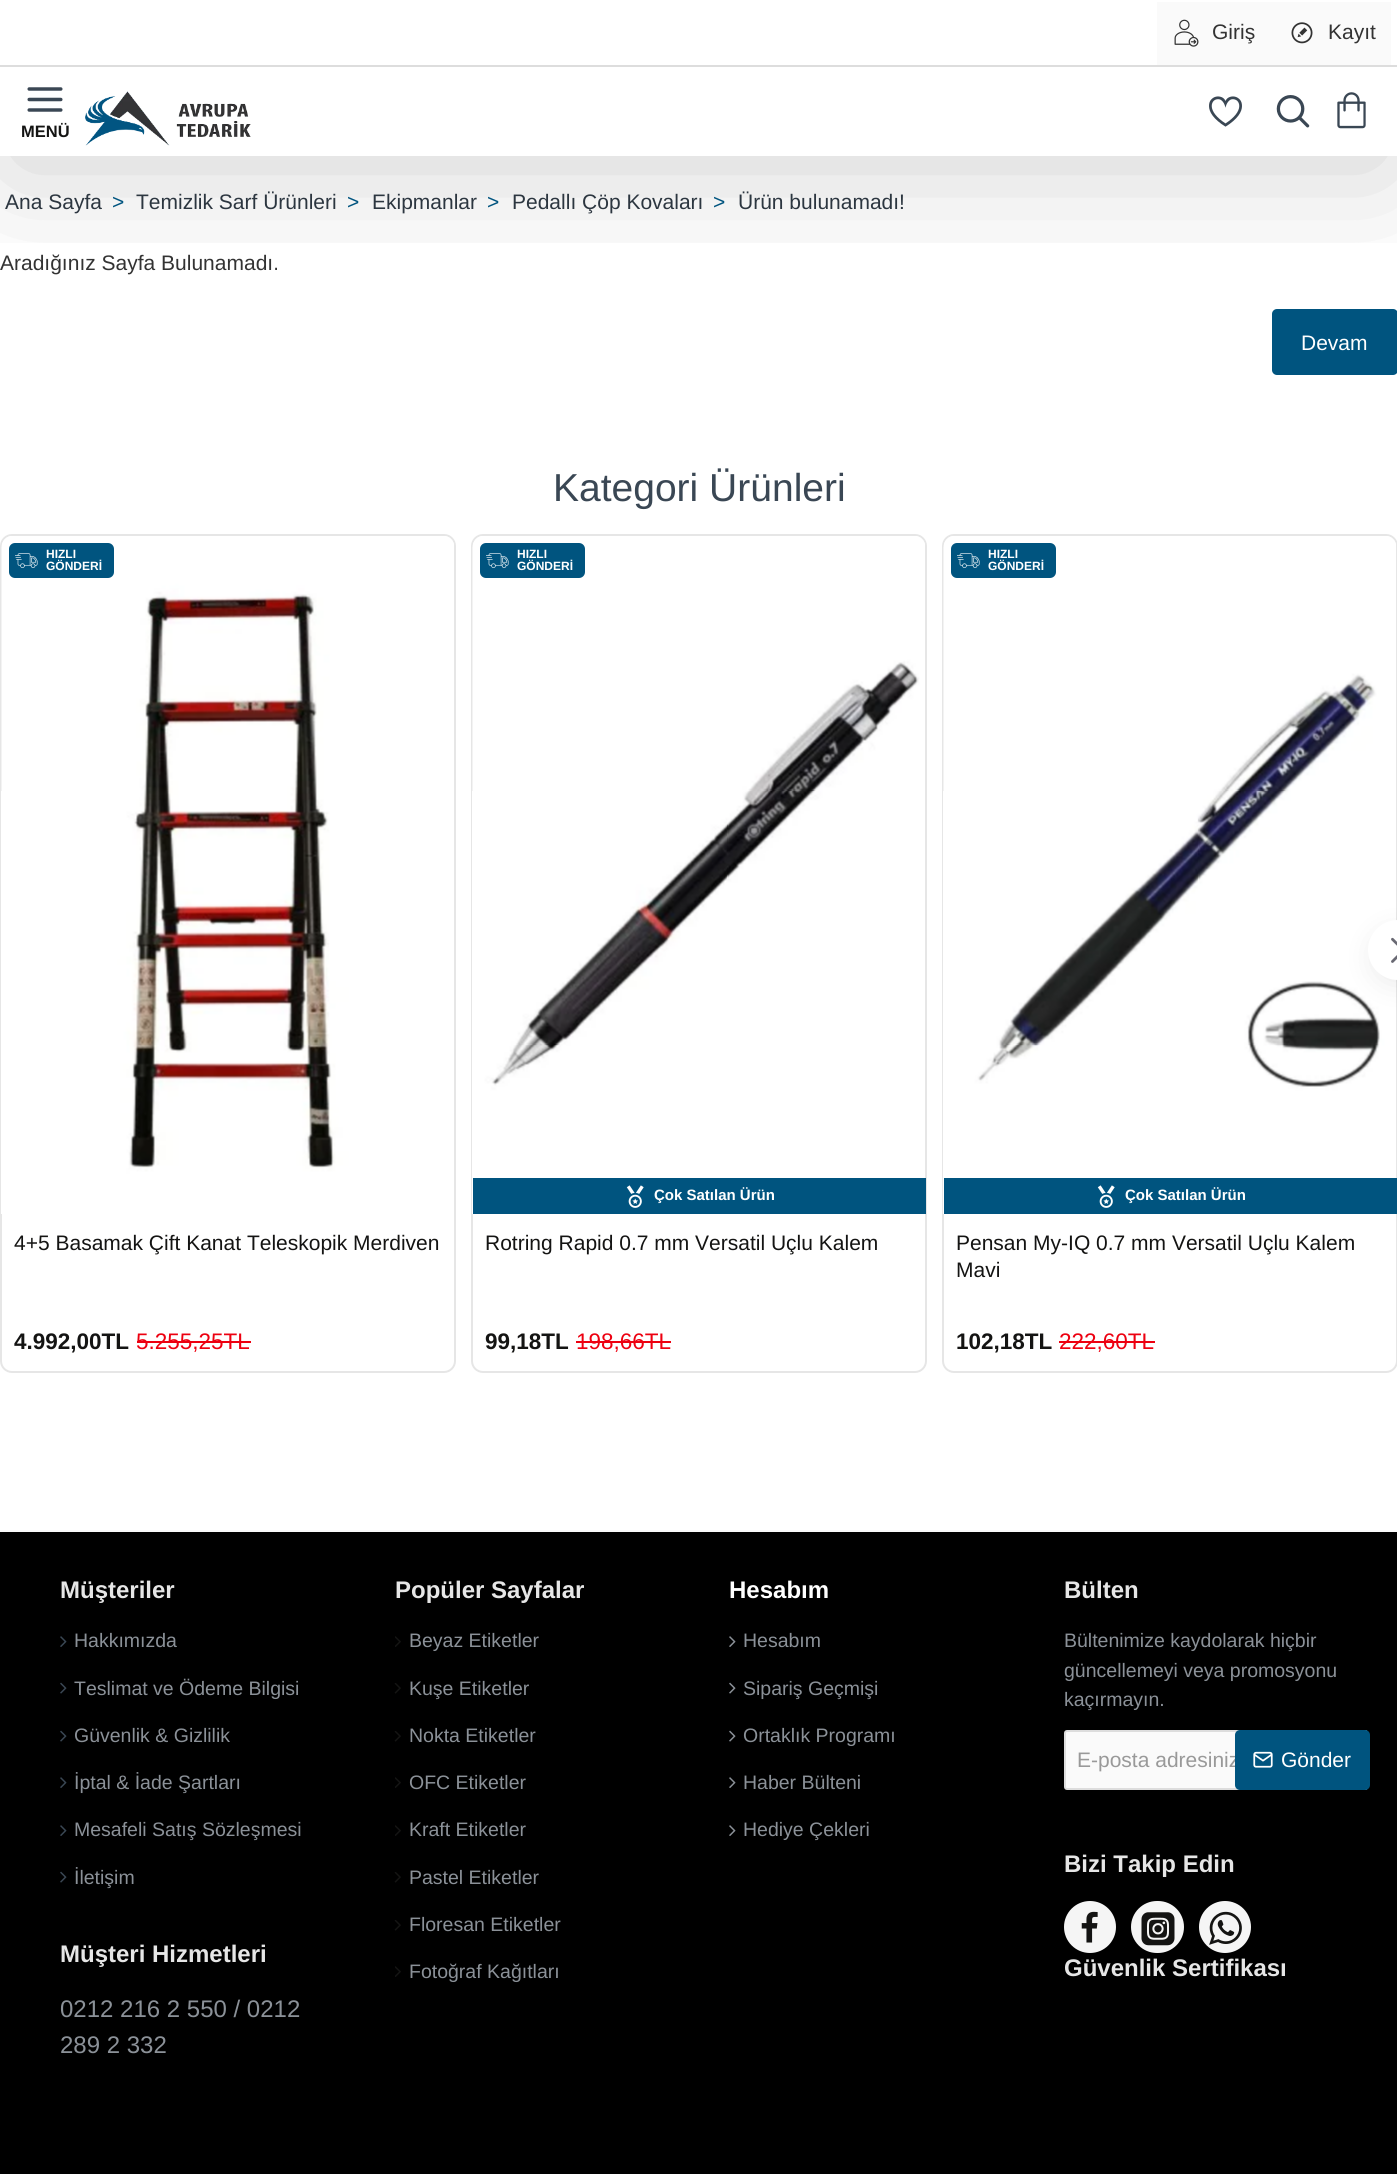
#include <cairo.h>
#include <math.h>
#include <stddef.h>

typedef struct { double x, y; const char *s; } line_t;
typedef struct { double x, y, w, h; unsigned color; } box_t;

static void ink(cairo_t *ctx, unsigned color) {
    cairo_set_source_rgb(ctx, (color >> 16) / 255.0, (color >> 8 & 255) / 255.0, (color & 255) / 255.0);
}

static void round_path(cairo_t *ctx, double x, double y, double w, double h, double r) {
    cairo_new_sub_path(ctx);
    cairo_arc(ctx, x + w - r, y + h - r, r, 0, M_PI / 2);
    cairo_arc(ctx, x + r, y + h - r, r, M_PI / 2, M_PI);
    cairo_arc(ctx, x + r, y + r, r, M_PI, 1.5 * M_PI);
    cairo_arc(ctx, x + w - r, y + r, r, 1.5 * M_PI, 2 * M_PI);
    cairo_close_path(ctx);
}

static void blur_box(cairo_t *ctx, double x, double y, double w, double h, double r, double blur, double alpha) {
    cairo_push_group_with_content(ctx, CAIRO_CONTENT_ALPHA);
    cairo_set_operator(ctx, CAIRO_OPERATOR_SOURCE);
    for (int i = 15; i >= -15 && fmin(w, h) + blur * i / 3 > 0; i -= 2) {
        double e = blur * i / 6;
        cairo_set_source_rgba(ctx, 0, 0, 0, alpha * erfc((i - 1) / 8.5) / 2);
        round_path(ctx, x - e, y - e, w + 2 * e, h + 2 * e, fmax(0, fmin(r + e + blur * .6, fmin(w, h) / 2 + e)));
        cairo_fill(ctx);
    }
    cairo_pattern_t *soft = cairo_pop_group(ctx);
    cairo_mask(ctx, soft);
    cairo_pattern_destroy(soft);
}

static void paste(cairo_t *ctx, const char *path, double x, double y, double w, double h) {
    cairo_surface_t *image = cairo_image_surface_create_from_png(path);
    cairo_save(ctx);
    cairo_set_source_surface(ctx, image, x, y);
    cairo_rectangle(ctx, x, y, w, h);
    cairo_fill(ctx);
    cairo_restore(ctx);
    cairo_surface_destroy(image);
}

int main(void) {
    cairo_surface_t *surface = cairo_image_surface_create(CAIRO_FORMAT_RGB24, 1397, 2174);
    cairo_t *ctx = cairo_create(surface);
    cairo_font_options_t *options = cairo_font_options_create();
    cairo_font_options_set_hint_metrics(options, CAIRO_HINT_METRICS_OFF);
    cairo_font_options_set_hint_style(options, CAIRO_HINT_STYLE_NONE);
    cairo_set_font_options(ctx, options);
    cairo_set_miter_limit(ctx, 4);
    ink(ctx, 0xFFFFFF);
    cairo_paint(ctx);
    ink(ctx, 0x00547F);
    round_path(ctx, 1272, 309, 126, 66, 5);
    cairo_fill(ctx);
    cairo_save(ctx);
    cairo_rectangle(ctx, 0, 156, 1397, 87);
    cairo_clip(ctx);
    ink(ctx, 0x000000);
    blur_box(ctx, 15, 104, 1368, 60, 0, 67.5, 0.2);
    cairo_restore(ctx);
    {
        static const box_t items[] = {
            {0, 0, 1397, 65, 0xFFFFFF},
            {0, 65, 1397, 2, 0xDDDDDD},
            {1157, 2, 234, 63, 0xFAFAFA},
        };
        for (size_t i = 0; i < sizeof items / sizeof *items; i++) {
            ink(ctx, items[i].color);
            cairo_rectangle(ctx, items[i].x, items[i].y, items[i].w, items[i].h);
            cairo_fill(ctx);
        }
    }
    paste(ctx, "media/1.png", 1174, 19, 25, 28);
    cairo_select_font_face(ctx, "Liberation Sans", CAIRO_FONT_SLANT_NORMAL, CAIRO_FONT_WEIGHT_NORMAL);
    cairo_set_font_size(ctx, 21);
    ink(ctx, 0x333333);
    cairo_move_to(ctx, 1212, 39);
    cairo_show_text(ctx, "Giriş");
    paste(ctx, "media/2.png", 1291, 22, 22, 22);
    cairo_move_to(ctx, 1328, 39);
    cairo_show_text(ctx, "Kayıt");
    paste(ctx, "media/3.png", 1209, 96, 33, 31);
    paste(ctx, "media/4.png", 1276, 95, 34, 33);
    paste(ctx, "media/5.png", 1337, 92, 29, 37);
    paste(ctx, "media/6.png", 27, 87, 36, 25);
    cairo_select_font_face(ctx, "Liberation Sans", CAIRO_FONT_SLANT_NORMAL, CAIRO_FONT_WEIGHT_BOLD);
    cairo_set_font_size(ctx, 16.5);
    ink(ctx, 0x141413);
    cairo_move_to(ctx, 21, 137);
    cairo_show_text(ctx, "MENÜ");
    paste(ctx, "media/7.png", 85, 91, 166, 55);
    cairo_select_font_face(ctx, "Liberation Sans", CAIRO_FONT_SLANT_NORMAL, CAIRO_FONT_WEIGHT_NORMAL);
    cairo_set_font_size(ctx, 21);
    ink(ctx, 0x2C3640);
    cairo_move_to(ctx, 5, 209);
    cairo_show_text(ctx, "Ana Sayfa");
    ink(ctx, 0x00547F);
    cairo_move_to(ctx, 112, 209);
    cairo_show_text(ctx, ">");
    ink(ctx, 0x2C3640);
    cairo_move_to(ctx, 136, 209);
    cairo_show_text(ctx, "Temizlik Sarf Ürünleri");
    ink(ctx, 0x00547F);
    cairo_move_to(ctx, 347, 209);
    cairo_show_text(ctx, ">");
    ink(ctx, 0x2C3640);
    cairo_move_to(ctx, 372, 209);
    cairo_show_text(ctx, "Ekipmanlar");
    ink(ctx, 0x00547F);
    cairo_move_to(ctx, 487, 209);
    cairo_show_text(ctx, ">");
    ink(ctx, 0x2C3640);
    cairo_move_to(ctx, 512, 209);
    cairo_show_text(ctx, "Pedallı Çöp Kovaları");
    ink(ctx, 0x00547F);
    cairo_move_to(ctx, 713, 209);
    cairo_show_text(ctx, ">");
    ink(ctx, 0x2C3640);
    cairo_move_to(ctx, 738, 209);
    cairo_show_text(ctx, "Ürün bulunamadı!");
    ink(ctx, 0x333333);
    cairo_move_to(ctx, 0, 270);
    cairo_show_text(ctx, "Aradığınız Sayfa Bulunamadı.");
    ink(ctx, 0xFFFFFF);
    cairo_move_to(ctx, 1301, 350);
    cairo_show_text(ctx, "Devam");
    cairo_set_font_size(ctx, 39);
    ink(ctx, 0x3A4754);
    cairo_move_to(ctx, 553, 501);
    cairo_show_text(ctx, "Kategori Ürünleri");
    round_path(ctx, 1, 535, 454, 837, 11);
    ink(ctx, 0xE6E6E6);
    cairo_stroke(ctx);
    paste(ctx, "media/8.png", 1, 536, 453, 678);
    ink(ctx, 0x00547F);
    round_path(ctx, 9, 543, 105, 35, 6);
    cairo_fill(ctx);
    paste(ctx, "media/9.png", 15, 553, 23, 15);
    cairo_select_font_face(ctx, "Liberation Sans", CAIRO_FONT_SLANT_NORMAL, CAIRO_FONT_WEIGHT_BOLD);
    cairo_set_font_size(ctx, 12);
    ink(ctx, 0xFFFFFF);
    cairo_move_to(ctx, 46, 558);
    cairo_show_text(ctx, "HIZLI");
    cairo_move_to(ctx, 46, 570);
    cairo_show_text(ctx, "GÖNDERİ");
    cairo_select_font_face(ctx, "Liberation Sans", CAIRO_FONT_SLANT_NORMAL, CAIRO_FONT_WEIGHT_NORMAL);
    cairo_set_font_size(ctx, 21);
    ink(ctx, 0x141413);
    cairo_move_to(ctx, 14, 1250);
    cairo_show_text(ctx, "4+5 Basamak Çift Kanat Teleskopik Merdiven");
    cairo_select_font_face(ctx, "Liberation Sans", CAIRO_FONT_SLANT_NORMAL, CAIRO_FONT_WEIGHT_BOLD);
    cairo_set_font_size(ctx, 22.5);
    cairo_move_to(ctx, 14, 1349);
    cairo_show_text(ctx, "4.992,00TL");
    cairo_select_font_face(ctx, "Liberation Sans", CAIRO_FONT_SLANT_NORMAL, CAIRO_FONT_WEIGHT_NORMAL);
    ink(ctx, 0xED0010);
    cairo_move_to(ctx, 136, 1349);
    cairo_show_text(ctx, "5.255,25TL");
    cairo_rectangle(ctx, 137, 1341, 114, 2);
    cairo_fill(ctx);
    round_path(ctx, 472, 535, 454, 837, 11);
    ink(ctx, 0xE6E6E6);
    cairo_stroke(ctx);
    paste(ctx, "media/10.png", 472, 536, 453, 678);
    ink(ctx, 0x00547F);
    round_path(ctx, 480, 543, 105, 35, 6);
    cairo_fill(ctx);
    paste(ctx, "media/9.png", 486, 553, 23, 15);
    cairo_select_font_face(ctx, "Liberation Sans", CAIRO_FONT_SLANT_NORMAL, CAIRO_FONT_WEIGHT_BOLD);
    cairo_set_font_size(ctx, 12);
    ink(ctx, 0xFFFFFF);
    cairo_move_to(ctx, 517, 558);
    cairo_show_text(ctx, "HIZLI");
    cairo_move_to(ctx, 517, 570);
    cairo_show_text(ctx, "GÖNDERİ");
    ink(ctx, 0x00547F);
    cairo_rectangle(ctx, 473, 1178, 453, 36);
    cairo_fill(ctx);
    paste(ctx, "media/11.png", 626, 1185, 18, 23);
    cairo_set_font_size(ctx, 15);
    ink(ctx, 0xFFFFFF);
    cairo_move_to(ctx, 654, 1200);
    cairo_show_text(ctx, "Çok Satılan Ürün");
    cairo_select_font_face(ctx, "Liberation Sans", CAIRO_FONT_SLANT_NORMAL, CAIRO_FONT_WEIGHT_NORMAL);
    cairo_set_font_size(ctx, 21);
    ink(ctx, 0x141413);
    cairo_move_to(ctx, 485, 1250);
    cairo_show_text(ctx, "Rotring Rapid 0.7 mm Versatil Uçlu Kalem");
    cairo_select_font_face(ctx, "Liberation Sans", CAIRO_FONT_SLANT_NORMAL, CAIRO_FONT_WEIGHT_BOLD);
    cairo_set_font_size(ctx, 22.5);
    cairo_move_to(ctx, 485, 1349);
    cairo_show_text(ctx, "99,18TL");
    cairo_select_font_face(ctx, "Liberation Sans", CAIRO_FONT_SLANT_NORMAL, CAIRO_FONT_WEIGHT_NORMAL);
    ink(ctx, 0xED0010);
    cairo_move_to(ctx, 576, 1349);
    cairo_show_text(ctx, "198,66TL");
    cairo_rectangle(ctx, 576, 1341, 95, 2);
    cairo_fill(ctx);
    round_path(ctx, 943, 535, 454, 837, 11);
    ink(ctx, 0xE6E6E6);
    cairo_stroke(ctx);
    paste(ctx, "media/12.png", 943, 536, 453, 678);
    ink(ctx, 0x00547F);
    round_path(ctx, 951, 543, 105, 35, 6);
    cairo_fill(ctx);
    paste(ctx, "media/9.png", 957, 553, 23, 15);
    cairo_select_font_face(ctx, "Liberation Sans", CAIRO_FONT_SLANT_NORMAL, CAIRO_FONT_WEIGHT_BOLD);
    cairo_set_font_size(ctx, 12);
    ink(ctx, 0xFFFFFF);
    cairo_move_to(ctx, 988, 558);
    cairo_show_text(ctx, "HIZLI");
    cairo_move_to(ctx, 988, 570);
    cairo_show_text(ctx, "GÖNDERİ");
    ink(ctx, 0x00547F);
    cairo_rectangle(ctx, 944, 1178, 453, 36);
    cairo_fill(ctx);
    paste(ctx, "media/11.png", 1097, 1185, 18, 23);
    cairo_set_font_size(ctx, 15);
    ink(ctx, 0xFFFFFF);
    cairo_move_to(ctx, 1125, 1200);
    cairo_show_text(ctx, "Çok Satılan Ürün");
    cairo_select_font_face(ctx, "Liberation Sans", CAIRO_FONT_SLANT_NORMAL, CAIRO_FONT_WEIGHT_NORMAL);
    cairo_set_font_size(ctx, 21);
    ink(ctx, 0x141413);
    cairo_move_to(ctx, 956, 1250);
    cairo_show_text(ctx, "Pensan My-IQ 0.7 mm Versatil Uçlu Kalem");
    cairo_move_to(ctx, 956, 1277);
    cairo_show_text(ctx, "Mavi");
    cairo_select_font_face(ctx, "Liberation Sans", CAIRO_FONT_SLANT_NORMAL, CAIRO_FONT_WEIGHT_BOLD);
    cairo_set_font_size(ctx, 22.5);
    cairo_move_to(ctx, 956, 1349);
    cairo_show_text(ctx, "102,18TL");
    cairo_select_font_face(ctx, "Liberation Sans", CAIRO_FONT_SLANT_NORMAL, CAIRO_FONT_WEIGHT_NORMAL);
    ink(ctx, 0xED0010);
    cairo_move_to(ctx, 1059, 1349);
    cairo_show_text(ctx, "222,60TL");
    cairo_rectangle(ctx, 1059, 1341, 96, 2);
    cairo_fill(ctx);
    ink(ctx, 0x000000);
    blur_box(ctx, 1376, 935, 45, 45, 22.5, 15, 0.1);
    ink(ctx, 0xFFFFFF);
    round_path(ctx, 1368, 920, 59, 60, 30);
    cairo_fill(ctx);
    paste(ctx, "media/13.png", 1391, 937, 6, 26);
    ink(ctx, 0x000000);
    cairo_rectangle(ctx, 0, 1532, 1397, 642);
    cairo_fill(ctx);
    ink(ctx, 0xFAFAFA);
    cairo_rectangle(ctx, 0, 1530, 1397, 2);
    cairo_fill(ctx);
    cairo_select_font_face(ctx, "Liberation Sans", CAIRO_FONT_SLANT_NORMAL, CAIRO_FONT_WEIGHT_BOLD);
    cairo_set_font_size(ctx, 24);
    ink(ctx, 0xE6E6E6);
    cairo_move_to(ctx, 60, 1598);
    cairo_show_text(ctx, "Müşteriler");
    paste(ctx, "media/14.png", 60, 1636, 7, 11);
    cairo_select_font_face(ctx, "Liberation Sans", CAIRO_FONT_SLANT_NORMAL, CAIRO_FONT_WEIGHT_NORMAL);
    cairo_set_font_size(ctx, 19.5);
    ink(ctx, 0x8B9198);
    cairo_move_to(ctx, 74, 1647);
    cairo_show_text(ctx, "Hakkımızda");
    paste(ctx, "media/15.png", 60, 1682, 7, 12);
    cairo_move_to(ctx, 74, 1695);
    cairo_show_text(ctx, "Teslimat ve Ödeme Bilgisi");
    paste(ctx, "media/15.png", 60, 1730, 7, 12);
    cairo_move_to(ctx, 74, 1742);
    cairo_show_text(ctx, "Güvenlik & Gizlilik");
    paste(ctx, "media/14.png", 60, 1777, 7, 11);
    cairo_move_to(ctx, 74, 1789);
    cairo_show_text(ctx, "İptal & İade Şartları");
    paste(ctx, "media/14.png", 60, 1825, 7, 11);
    cairo_move_to(ctx, 74, 1836);
    cairo_show_text(ctx, "Mesafeli Satış Sözleşmesi");
    paste(ctx, "media/15.png", 60, 1871, 7, 12);
    cairo_move_to(ctx, 74, 1884);
    cairo_show_text(ctx, "İletişim");
    cairo_select_font_face(ctx, "Liberation Sans", CAIRO_FONT_SLANT_NORMAL, CAIRO_FONT_WEIGHT_BOLD);
    cairo_set_font_size(ctx, 24);
    ink(ctx, 0xE6E6E6);
    cairo_move_to(ctx, 60, 1962);
    cairo_show_text(ctx, "Müşteri Hizmetleri");
    cairo_select_font_face(ctx, "Liberation Sans", CAIRO_FONT_SLANT_NORMAL, CAIRO_FONT_WEIGHT_NORMAL);
    ink(ctx, 0x8B9198);
    cairo_move_to(ctx, 60, 2017);
    cairo_show_text(ctx, "0212 216 2 550 / 0212");
    cairo_move_to(ctx, 60, 2053);
    cairo_show_text(ctx, "289 2 332");
    cairo_select_font_face(ctx, "Liberation Sans", CAIRO_FONT_SLANT_NORMAL, CAIRO_FONT_WEIGHT_BOLD);
    ink(ctx, 0xE6E6E6);
    cairo_move_to(ctx, 395, 1598);
    cairo_show_text(ctx, "Popüler Sayfalar");
    paste(ctx, "media/16.png", 395, 1636, 6, 11);
    cairo_select_font_face(ctx, "Liberation Sans", CAIRO_FONT_SLANT_NORMAL, CAIRO_FONT_WEIGHT_NORMAL);
    cairo_set_font_size(ctx, 19.5);
    ink(ctx, 0x8B9198);
    cairo_move_to(ctx, 409, 1647);
    cairo_show_text(ctx, "Beyaz Etiketler");
    paste(ctx, "media/17.png", 394, 1683, 7, 11);
    cairo_move_to(ctx, 409, 1695);
    cairo_show_text(ctx, "Kuşe Etiketler");
    paste(ctx, "media/17.png", 394, 1731, 7, 11);
    cairo_move_to(ctx, 409, 1742);
    cairo_show_text(ctx, "Nokta Etiketler");
    paste(ctx, "media/16.png", 395, 1777, 6, 11);
    cairo_move_to(ctx, 409, 1789);
    cairo_show_text(ctx, "OFC Etiketler");
    paste(ctx, "media/16.png", 395, 1825, 6, 11);
    cairo_move_to(ctx, 409, 1836);
    cairo_show_text(ctx, "Kraft Etiketler");
    paste(ctx, "media/17.png", 394, 1872, 7, 11);
    cairo_move_to(ctx, 409, 1884);
    cairo_show_text(ctx, "Pastel Etiketler");
    paste(ctx, "media/17.png", 394, 1920, 7, 11);
    cairo_move_to(ctx, 409, 1931);
    cairo_show_text(ctx, "Floresan Etiketler");
    paste(ctx, "media/16.png", 395, 1966, 6, 11);
    cairo_move_to(ctx, 409, 1978);
    cairo_show_text(ctx, "Fotoğraf Kağıtları");
    cairo_select_font_face(ctx, "Liberation Sans", CAIRO_FONT_SLANT_NORMAL, CAIRO_FONT_WEIGHT_BOLD);
    cairo_set_font_size(ctx, 24);
    ink(ctx, 0xFFFFFF);
    cairo_move_to(ctx, 729, 1598);
    cairo_show_text(ctx, "Hesabım");
    paste(ctx, "media/18.png", 729, 1636, 7, 11);
    cairo_select_font_face(ctx, "Liberation Sans", CAIRO_FONT_SLANT_NORMAL, CAIRO_FONT_WEIGHT_NORMAL);
    cairo_set_font_size(ctx, 19.5);
    ink(ctx, 0x8B9198);
    cairo_move_to(ctx, 743, 1647);
    cairo_show_text(ctx, "Hesabım");
    paste(ctx, "media/19.png", 729, 1682, 7, 12);
    cairo_move_to(ctx, 743, 1695);
    cairo_show_text(ctx, "Sipariş Geçmişi");
    paste(ctx, "media/19.png", 729, 1730, 7, 12);
    cairo_move_to(ctx, 743, 1742);
    cairo_show_text(ctx, "Ortaklık Programı");
    paste(ctx, "media/18.png", 729, 1777, 7, 11);
    cairo_move_to(ctx, 743, 1789);
    cairo_show_text(ctx, "Haber Bülteni");
    paste(ctx, "media/18.png", 729, 1825, 7, 11);
    cairo_move_to(ctx, 743, 1836);
    cairo_show_text(ctx, "Hediye Çekleri");
    cairo_select_font_face(ctx, "Liberation Sans", CAIRO_FONT_SLANT_NORMAL, CAIRO_FONT_WEIGHT_BOLD);
    cairo_set_font_size(ctx, 24);
    ink(ctx, 0xE6E6E6);
    cairo_move_to(ctx, 1064, 1598);
    cairo_show_text(ctx, "Bülten");
    cairo_select_font_face(ctx, "Liberation Sans", CAIRO_FONT_SLANT_NORMAL, CAIRO_FONT_WEIGHT_NORMAL);
    cairo_set_font_size(ctx, 19.5);
    ink(ctx, 0x8B9198);
    {
        static const line_t items[] = {
            {1064, 1647, "Bültenimize kaydolarak hiçbir"},
            {1064, 1677, "güncellemeyi veya promosyonu"},
            {1064, 1706, "kaçırmayın."},
        };
        for (size_t i = 0; i < sizeof items / sizeof *items; i++) {
            cairo_move_to(ctx, items[i].x, items[i].y);
            cairo_show_text(ctx, items[i].s);
        }
    }
    ink(ctx, 0xFAFAFA);
    round_path(ctx, 1065, 1731, 302, 58, 2);
    cairo_fill_preserve(ctx);
    ink(ctx, 0xDDDDDD);
    cairo_stroke(ctx);
    cairo_set_font_size(ctx, 21);
    ink(ctx, 0x999999);
    cairo_move_to(ctx, 1077, 1767);
    cairo_show_text(ctx, "E-posta adresiniz");
    ink(ctx, 0x00547F);
    round_path(ctx, 1235, 1730, 135, 60, 5);
    cairo_fill(ctx);
    paste(ctx, "media/20.png", 1253, 1751, 20, 17);
    ink(ctx, 0xFFFFFF);
    cairo_move_to(ctx, 1281, 1767);
    cairo_show_text(ctx, "Gönder");
    cairo_select_font_face(ctx, "Liberation Sans", CAIRO_FONT_SLANT_NORMAL, CAIRO_FONT_WEIGHT_BOLD);
    cairo_set_font_size(ctx, 24);
    ink(ctx, 0xE6E6E6);
    cairo_move_to(ctx, 1064, 1872);
    cairo_show_text(ctx, "Bizi Takip Edin");
    ink(ctx, 0xF5F5F5);
    cairo_new_path(ctx);
    cairo_arc(ctx, 1090, 1927, 26, 0, 2 * M_PI);
    cairo_fill(ctx);
    paste(ctx, "media/21.png", 1081, 1911, 17, 32);
    round_path(ctx, 1131, 1901, 53, 52, 26);
    cairo_fill(ctx);
    paste(ctx, "media/22.png", 1141, 1912, 34, 34);
    cairo_arc(ctx, 1225, 1927, 26, 0, 2 * M_PI);
    cairo_fill(ctx);
    paste(ctx, "media/23.png", 1209, 1911, 33, 34);
    ink(ctx, 0xE6E6E6);
    cairo_move_to(ctx, 1064, 1976);
    cairo_show_text(ctx, "Güvenlik Sertifikası");
    cairo_surface_write_to_png(surface, "image.png");
    cairo_font_options_destroy(options);
    cairo_destroy(ctx);
    cairo_surface_destroy(surface);
    return 0;
}
